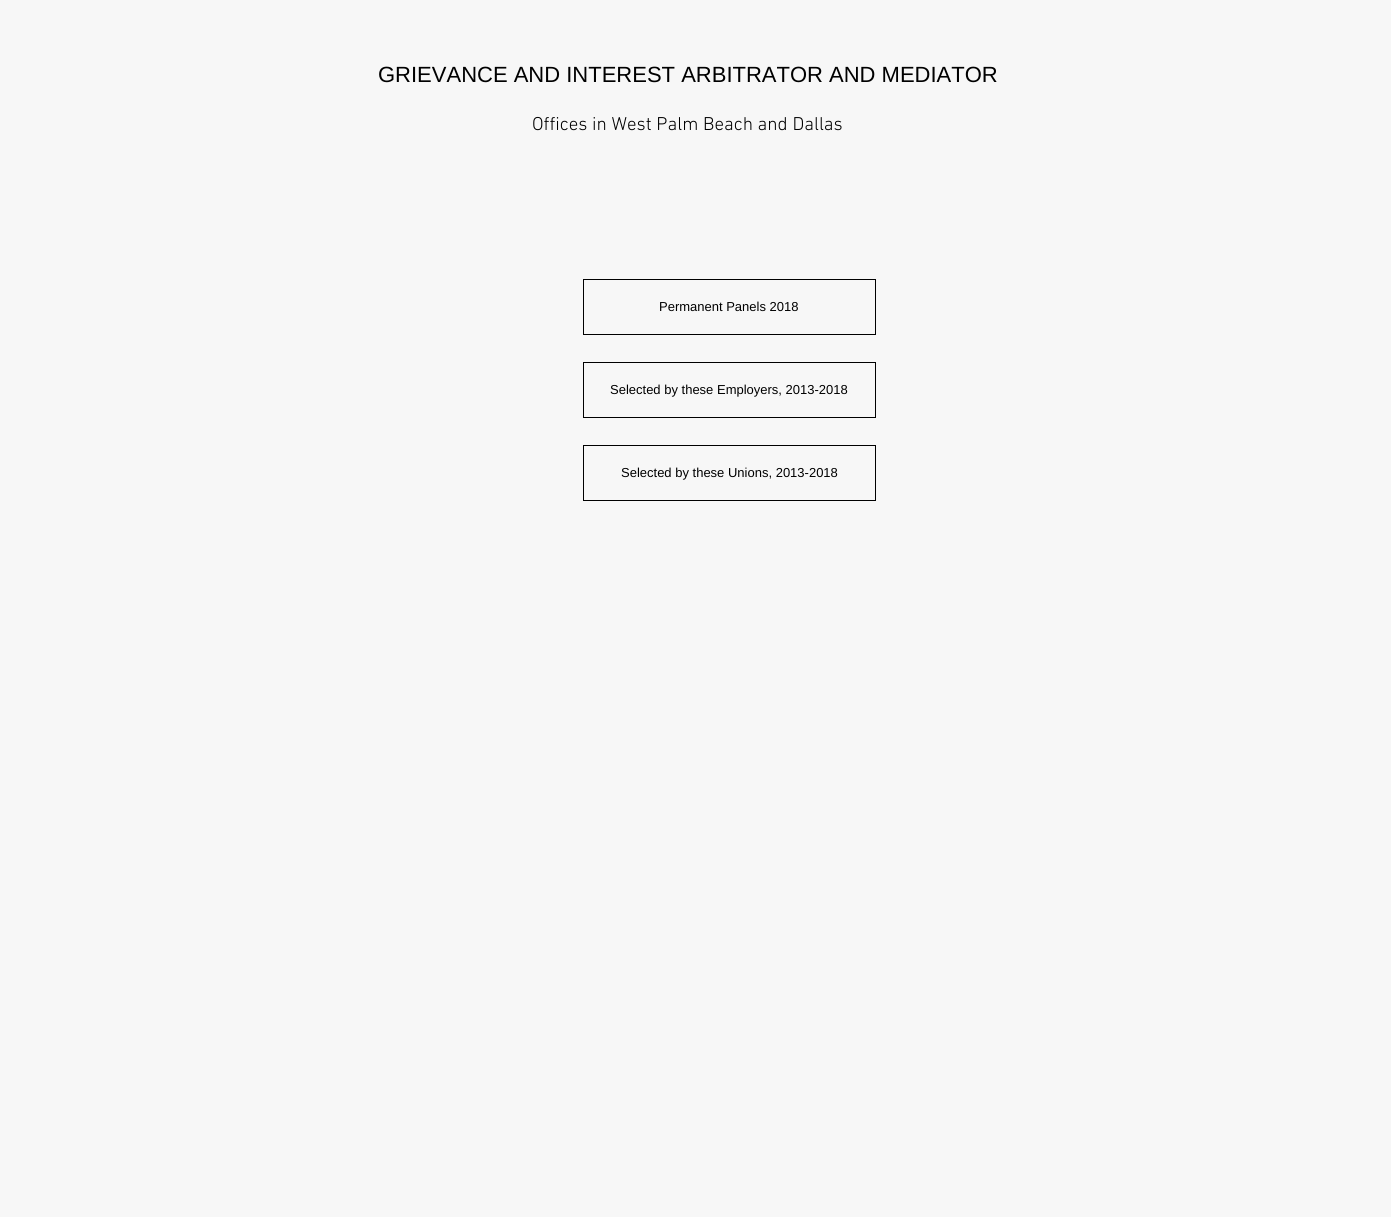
#include <cairo.h>
#include <math.h>
#include <stddef.h>


static void ink(cairo_t *ctx, unsigned color) {
    cairo_set_source_rgb(ctx, (color >> 16) / 255.0, (color >> 8 & 255) / 255.0, (color & 255) / 255.0);
}

int main(void) {
    cairo_surface_t *surface = cairo_image_surface_create(CAIRO_FORMAT_RGB24, 1391, 1217);
    cairo_t *ctx = cairo_create(surface);
    cairo_font_options_t *options = cairo_font_options_create();
    cairo_font_options_set_hint_metrics(options, CAIRO_HINT_METRICS_OFF);
    cairo_font_options_set_hint_style(options, CAIRO_HINT_STYLE_NONE);
    cairo_set_font_options(ctx, options);
    cairo_set_miter_limit(ctx, 4);
    ink(ctx, 0xF7F7F7);
    cairo_paint(ctx);
    cairo_select_font_face(ctx, "Liberation Sans", CAIRO_FONT_SLANT_NORMAL, CAIRO_FONT_WEIGHT_NORMAL);
    cairo_set_font_size(ctx, 22);
    ink(ctx, 0x000000);
    cairo_move_to(ctx, 378, 82);
    cairo_show_text(ctx, "GRIEVANCE AND INTEREST ARBITRATOR AND MEDIATOR");
    cairo_select_font_face(ctx, "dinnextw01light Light", CAIRO_FONT_SLANT_NORMAL, CAIRO_FONT_WEIGHT_NORMAL);
    cairo_set_font_size(ctx, 19);
    cairo_move_to(ctx, 532, 130);
    cairo_show_text(ctx, "Offices in West Palm Beach and Dallas");
    cairo_rectangle(ctx, 583.5, 279.5, 292, 55);
    cairo_set_line_width(ctx, 1);
    cairo_stroke(ctx);
    cairo_select_font_face(ctx, "Liberation Sans", CAIRO_FONT_SLANT_NORMAL, CAIRO_FONT_WEIGHT_NORMAL);
    cairo_set_font_size(ctx, 13);
    cairo_move_to(ctx, 659, 311);
    cairo_show_text(ctx, "Permanent Panels 2018");
    cairo_rectangle(ctx, 583.5, 362.5, 292, 55);
    cairo_stroke(ctx);
    cairo_move_to(ctx, 610, 394);
    cairo_show_text(ctx, "Selected by these Employers, 2013-2018");
    cairo_rectangle(ctx, 583.5, 445.5, 292, 55);
    cairo_stroke(ctx);
    cairo_move_to(ctx, 621, 477);
    cairo_show_text(ctx, "Selected by these Unions, 2013-2018");
    cairo_surface_write_to_png(surface, "image.png");
    cairo_font_options_destroy(options);
    cairo_destroy(ctx);
    cairo_surface_destroy(surface);
    return 0;
}
